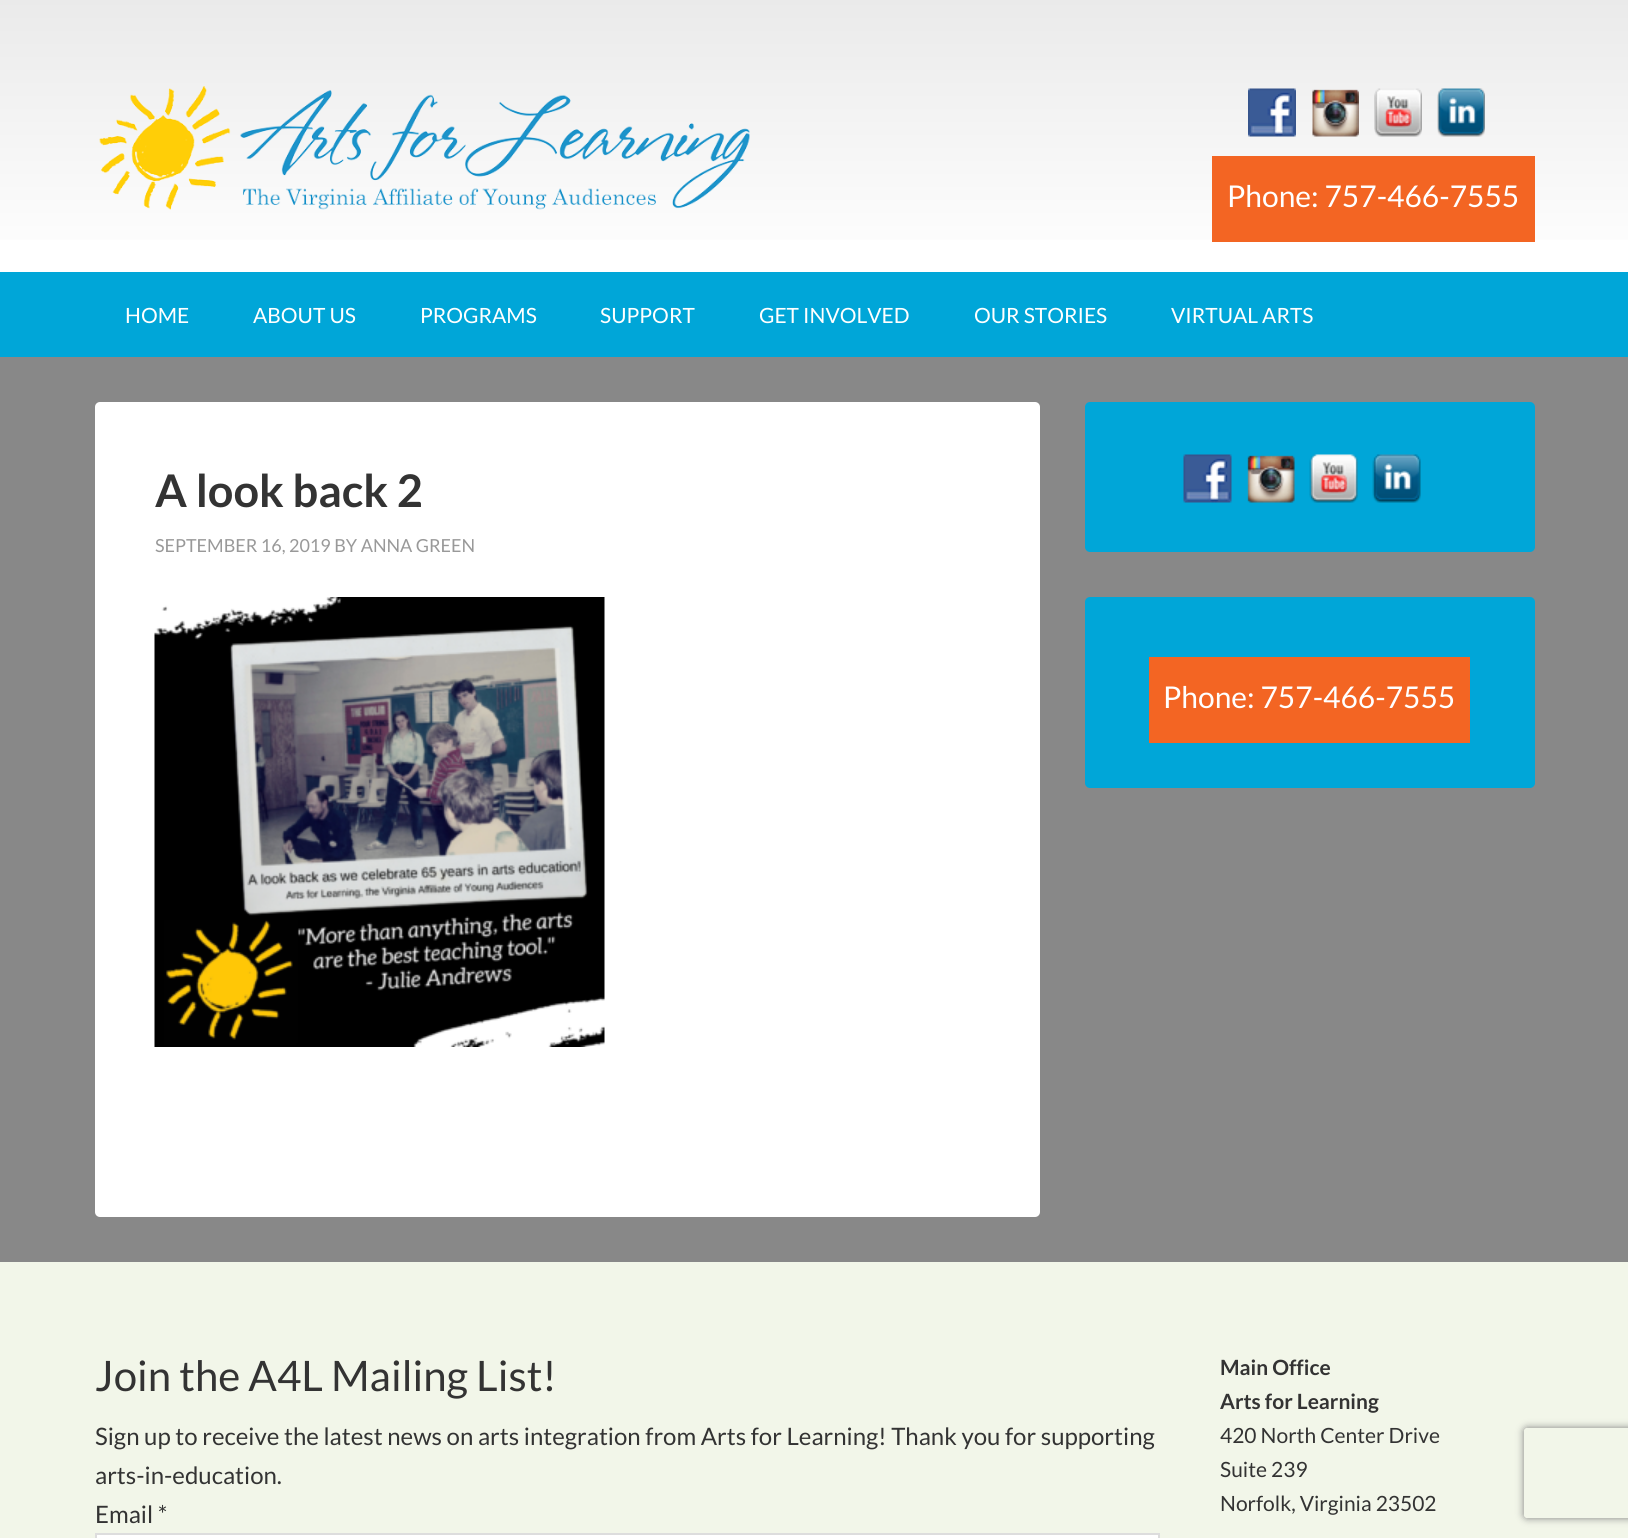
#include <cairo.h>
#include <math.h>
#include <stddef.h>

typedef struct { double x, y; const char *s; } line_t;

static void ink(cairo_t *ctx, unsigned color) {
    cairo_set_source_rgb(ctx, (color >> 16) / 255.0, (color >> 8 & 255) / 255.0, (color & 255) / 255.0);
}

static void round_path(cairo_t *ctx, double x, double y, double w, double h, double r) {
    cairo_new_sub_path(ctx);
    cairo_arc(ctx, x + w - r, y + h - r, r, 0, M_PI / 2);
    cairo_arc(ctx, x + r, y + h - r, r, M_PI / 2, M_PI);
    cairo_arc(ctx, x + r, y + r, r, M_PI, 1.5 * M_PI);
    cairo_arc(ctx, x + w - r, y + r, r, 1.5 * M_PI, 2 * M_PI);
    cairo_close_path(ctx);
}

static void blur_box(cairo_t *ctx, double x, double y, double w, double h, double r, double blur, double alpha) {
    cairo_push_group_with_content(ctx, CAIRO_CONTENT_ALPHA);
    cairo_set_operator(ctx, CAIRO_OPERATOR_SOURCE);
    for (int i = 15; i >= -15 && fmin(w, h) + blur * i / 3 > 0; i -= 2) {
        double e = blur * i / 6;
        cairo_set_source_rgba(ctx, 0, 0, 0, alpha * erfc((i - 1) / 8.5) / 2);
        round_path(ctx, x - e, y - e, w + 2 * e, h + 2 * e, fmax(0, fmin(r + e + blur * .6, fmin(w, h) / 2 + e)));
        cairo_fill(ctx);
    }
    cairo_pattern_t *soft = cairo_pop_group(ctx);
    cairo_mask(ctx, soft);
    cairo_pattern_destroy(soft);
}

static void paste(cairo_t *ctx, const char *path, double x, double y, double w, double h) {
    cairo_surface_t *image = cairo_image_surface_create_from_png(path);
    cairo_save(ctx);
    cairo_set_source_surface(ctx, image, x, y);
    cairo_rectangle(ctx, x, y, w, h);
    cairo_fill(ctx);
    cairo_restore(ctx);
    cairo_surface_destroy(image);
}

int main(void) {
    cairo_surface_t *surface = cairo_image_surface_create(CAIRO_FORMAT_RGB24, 1628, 1538);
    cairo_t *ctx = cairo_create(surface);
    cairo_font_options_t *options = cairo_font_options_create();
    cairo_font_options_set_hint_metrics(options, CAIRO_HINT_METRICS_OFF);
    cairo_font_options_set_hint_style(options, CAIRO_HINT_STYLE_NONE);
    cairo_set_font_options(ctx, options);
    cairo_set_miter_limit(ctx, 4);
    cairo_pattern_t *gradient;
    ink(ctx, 0xFFFFFF);
    cairo_paint(ctx);
    gradient = cairo_pattern_create_linear(815, 0, 815, 272);
    cairo_pattern_add_color_stop_rgba(gradient, 0, 0.918, 0.918, 0.918, 1);
    cairo_pattern_add_color_stop_rgba(gradient, 1, 1, 1, 1, 1);
    cairo_set_source(ctx, gradient);
    cairo_pattern_destroy(gradient);
    cairo_rectangle(ctx, 0, 0, 1628, 240);
    cairo_fill(ctx);
    paste(ctx, "media/1.png", 99, 86, 651, 124);
    paste(ctx, "media/2.png", 1248, 88, 48, 49);
    paste(ctx, "media/3.png", 1312, 89, 47, 48);
    paste(ctx, "media/4.png", 1374, 88, 48, 49);
    paste(ctx, "media/5.png", 1437, 88, 48, 49);
    ink(ctx, 0xF36523);
    cairo_rectangle(ctx, 1212, 156, 323, 86);
    cairo_fill(ctx);
    cairo_select_font_face(ctx, "Lato", CAIRO_FONT_SLANT_NORMAL, CAIRO_FONT_WEIGHT_NORMAL);
    cairo_set_font_size(ctx, 30);
    ink(ctx, 0xFFFFFF);
    cairo_move_to(ctx, 1227, 207);
    cairo_show_text(ctx, "Phone: 757-466-7555");
    ink(ctx, 0x00A6D8);
    cairo_rectangle(ctx, 0, 272, 1628, 85);
    cairo_fill(ctx);
    cairo_set_font_size(ctx, 21);
    ink(ctx, 0xFFFFFF);
    {
        static const line_t items[] = {
            {125, 323, "HOME"},
            {253, 323, "ABOUT US"},
            {420, 323, "PROGRAMS"},
            {600, 323, "SUPPORT"},
            {759, 323, "GET INVOLVED"},
            {974, 323, "OUR STORIES"},
            {1171, 323, "VIRTUAL ARTS"},
        };
        for (size_t i = 0; i < sizeof items / sizeof *items; i++) {
            cairo_move_to(ctx, items[i].x, items[i].y);
            cairo_show_text(ctx, items[i].s);
        }
    }
    ink(ctx, 0x888888);
    cairo_rectangle(ctx, 0, 357, 1628, 905);
    cairo_fill(ctx);
    ink(ctx, 0xFFFFFF);
    round_path(ctx, 95, 402, 945, 815, 5);
    cairo_fill(ctx);
    cairo_select_font_face(ctx, "Lato", CAIRO_FONT_SLANT_NORMAL, CAIRO_FONT_WEIGHT_BOLD);
    cairo_set_font_size(ctx, 45);
    ink(ctx, 0x333333);
    cairo_move_to(ctx, 155, 507);
    cairo_show_text(ctx, "A look back 2");
    cairo_select_font_face(ctx, "Lato", CAIRO_FONT_SLANT_NORMAL, CAIRO_FONT_WEIGHT_NORMAL);
    cairo_set_font_size(ctx, 18);
    ink(ctx, 0x999999);
    cairo_move_to(ctx, 155, 552);
    cairo_show_text(ctx, "SEPTEMBER 16, 2019 BY ANNA GREEN");
    paste(ctx, "media/6.png", 154, 597, 451, 450);
    ink(ctx, 0x00A6D8);
    round_path(ctx, 1085, 402, 450, 150, 5);
    cairo_fill(ctx);
    paste(ctx, "media/7.png", 1183, 454, 49, 49);
    paste(ctx, "media/8.png", 1247, 455, 48, 48);
    paste(ctx, "media/9.png", 1309, 454, 49, 49);
    paste(ctx, "media/10.png", 1372, 454, 49, 49);
    round_path(ctx, 1085, 597, 450, 191, 5);
    cairo_fill(ctx);
    ink(ctx, 0xF36523);
    cairo_rectangle(ctx, 1149, 657, 321, 86);
    cairo_fill(ctx);
    cairo_set_font_size(ctx, 30);
    ink(ctx, 0xFFFFFF);
    cairo_move_to(ctx, 1163, 708);
    cairo_show_text(ctx, "Phone: 757-466-7555");
    ink(ctx, 0xF2F6E9);
    cairo_rectangle(ctx, 0, 1262, 1628, 276);
    cairo_fill(ctx);
    cairo_set_font_size(ctx, 42);
    ink(ctx, 0x333333);
    cairo_move_to(ctx, 95, 1391);
    cairo_show_text(ctx, "Join the A4L Mailing List!");
    cairo_set_font_size(ctx, 24);
    {
        static const line_t items[] = {
            {95, 1445, "Sign up to receive the latest news on arts integration from Arts for Learning! Thank you for supporting"},
            {95, 1484, "arts-in-education."},
            {95, 1523, "Email *"},
        };
        for (size_t i = 0; i < sizeof items / sizeof *items; i++) {
            cairo_move_to(ctx, items[i].x, items[i].y);
            cairo_show_text(ctx, items[i].s);
        }
    }
    ink(ctx, 0xFFFFFF);
    cairo_rectangle(ctx, 96, 1534, 1063, 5);
    cairo_fill_preserve(ctx);
    ink(ctx, 0xDDDDDD);
    cairo_stroke(ctx);
    cairo_select_font_face(ctx, "Lato", CAIRO_FONT_SLANT_NORMAL, CAIRO_FONT_WEIGHT_BOLD);
    cairo_set_font_size(ctx, 21);
    ink(ctx, 0x333333);
    cairo_move_to(ctx, 1220, 1375);
    cairo_show_text(ctx, "Main Office");
    cairo_move_to(ctx, 1220, 1409);
    cairo_show_text(ctx, "Arts for Learning");
    cairo_select_font_face(ctx, "Lato", CAIRO_FONT_SLANT_NORMAL, CAIRO_FONT_WEIGHT_NORMAL);
    {
        static const line_t items[] = {
            {1220, 1443, "420 North Center Drive"},
            {1220, 1477, "Suite 239"},
            {1220, 1511, "Norfolk, Virginia 23502"},
        };
        for (size_t i = 0; i < sizeof items / sizeof *items; i++) {
            cairo_move_to(ctx, items[i].x, items[i].y);
            cairo_show_text(ctx, items[i].s);
        }
    }
    cairo_save(ctx);
    cairo_set_fill_rule(ctx, CAIRO_FILL_RULE_EVEN_ODD);
    cairo_new_path(ctx);
    cairo_move_to(ctx, 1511, 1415);
    cairo_line_to(ctx, 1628, 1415);
    cairo_line_to(ctx, 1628, 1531);
    cairo_line_to(ctx, 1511, 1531);
    cairo_close_path(ctx);
    cairo_move_to(ctx, 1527, 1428);
    cairo_line_to(ctx, 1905, 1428);
    cairo_curve_to(ctx, 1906.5, 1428, 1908, 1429.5, 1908, 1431);
    cairo_line_to(ctx, 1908, 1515);
    cairo_curve_to(ctx, 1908, 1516.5, 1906.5, 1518, 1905, 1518);
    cairo_line_to(ctx, 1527, 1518);
    cairo_curve_to(ctx, 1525.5, 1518, 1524, 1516.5, 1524, 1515);
    cairo_line_to(ctx, 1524, 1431);
    cairo_curve_to(ctx, 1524, 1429.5, 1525.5, 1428, 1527, 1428);
    cairo_close_path(ctx);
    cairo_clip(ctx);
    ink(ctx, 0x808080);
    blur_box(ctx, 1524, 1428, 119, 90, 3, 4, 1);
    cairo_restore(ctx);
    cairo_surface_write_to_png(surface, "image.png");
    cairo_font_options_destroy(options);
    cairo_destroy(ctx);
    cairo_surface_destroy(surface);
    return 0;
}
